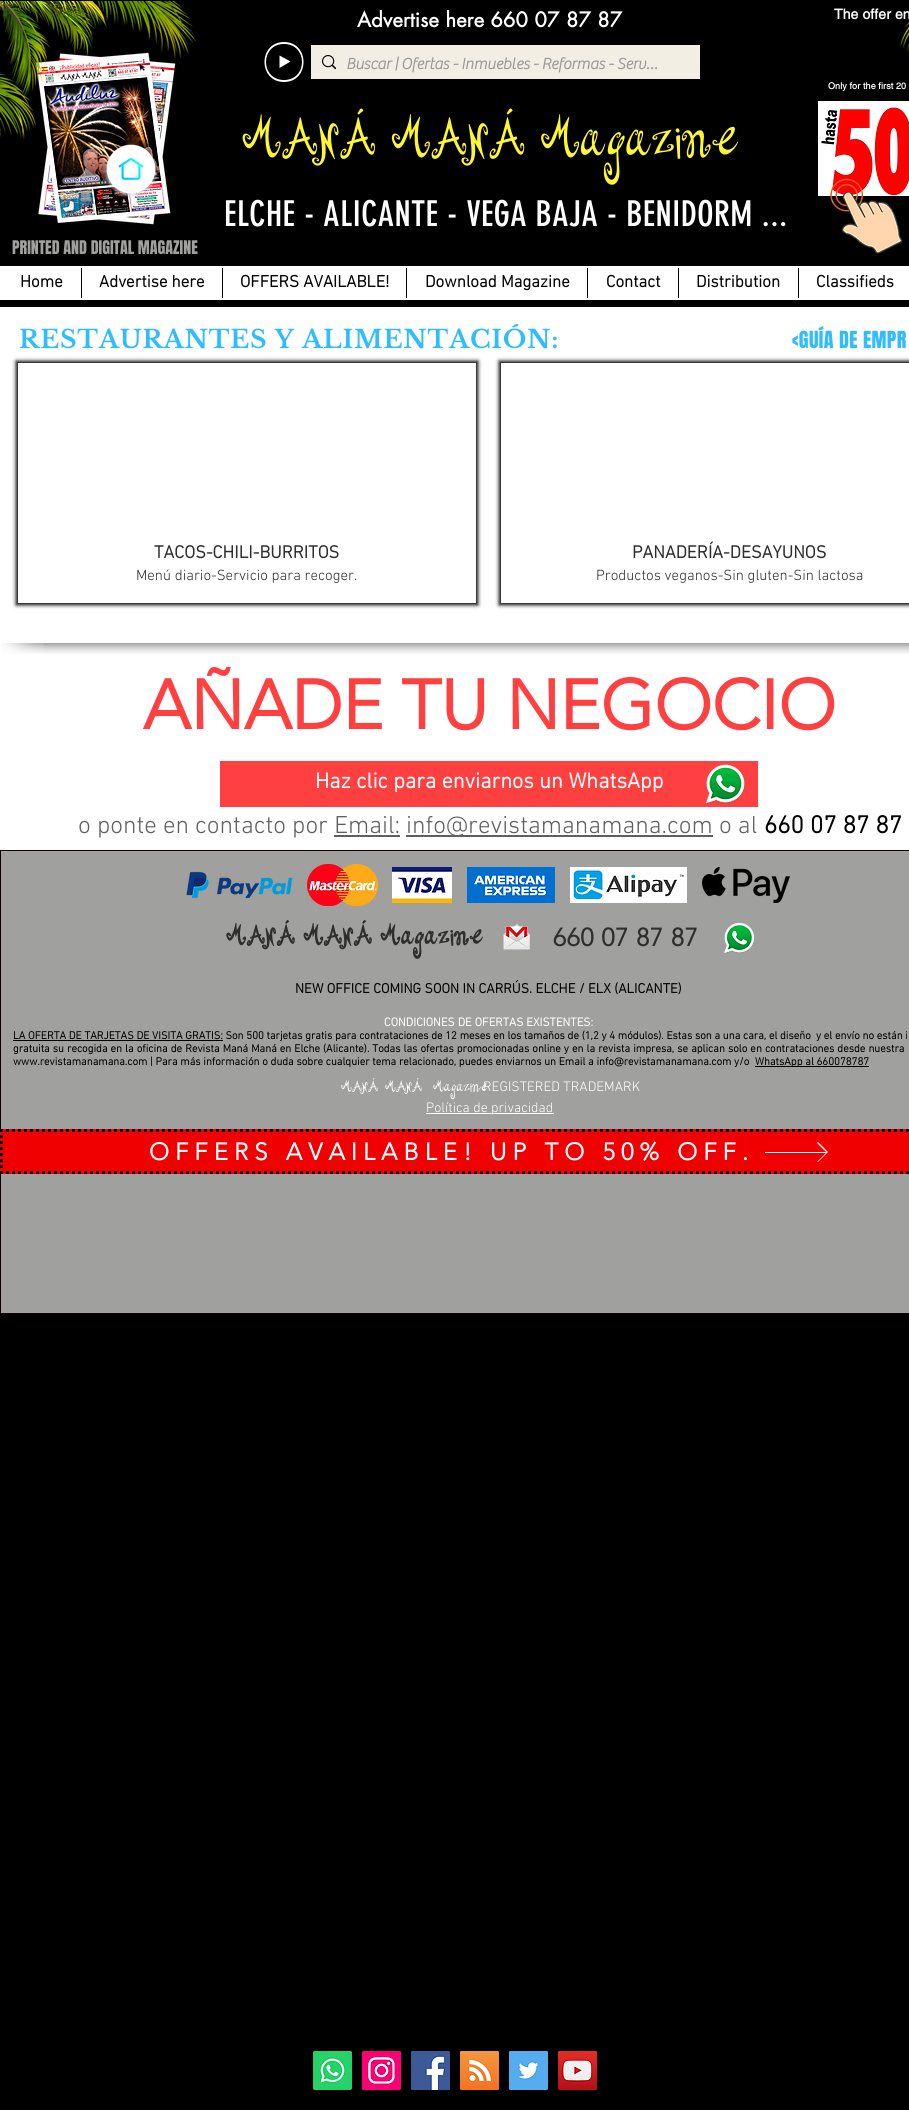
#include <cairo.h>
#include <math.h>
#include <stddef.h>

typedef struct { double x, y, w, h; unsigned color; } box_t;

static void ink(cairo_t *ctx, unsigned color) {
    cairo_set_source_rgb(ctx, (color >> 16) / 255.0, (color >> 8 & 255) / 255.0, (color & 255) / 255.0);
}

static void write_spaced(cairo_t *ctx, double x, double y, const char *s, double letter, double word) {
    cairo_move_to(ctx, x, y);
    while (*s) {
        char ch[5] = {0};
        int n = 0;
        do ch[n++] = *s++; while ((*s & 0xC0) == 0x80);
        cairo_show_text(ctx, ch);
        cairo_rel_move_to(ctx, letter + word * (*ch == ' '), 0);
    }
}

static void round_path(cairo_t *ctx, double x, double y, double w, double h, double r) {
    cairo_new_sub_path(ctx);
    cairo_arc(ctx, x + w - r, y + h - r, r, 0, M_PI / 2);
    cairo_arc(ctx, x + r, y + h - r, r, M_PI / 2, M_PI);
    cairo_arc(ctx, x + r, y + r, r, M_PI, 1.5 * M_PI);
    cairo_arc(ctx, x + w - r, y + r, r, 1.5 * M_PI, 2 * M_PI);
    cairo_close_path(ctx);
}

static void blur_box(cairo_t *ctx, double x, double y, double w, double h, double r, double blur, double alpha) {
    cairo_push_group_with_content(ctx, CAIRO_CONTENT_ALPHA);
    cairo_set_operator(ctx, CAIRO_OPERATOR_SOURCE);
    for (int i = 15; i >= -15 && fmin(w, h) + blur * i / 3 > 0; i -= 2) {
        double e = blur * i / 6;
        cairo_set_source_rgba(ctx, 0, 0, 0, alpha * erfc((i - 1) / 8.5) / 2);
        round_path(ctx, x - e, y - e, w + 2 * e, h + 2 * e, fmax(0, fmin(r + e + blur * .6, fmin(w, h) / 2 + e)));
        cairo_fill(ctx);
    }
    cairo_pattern_t *soft = cairo_pop_group(ctx);
    cairo_mask(ctx, soft);
    cairo_pattern_destroy(soft);
}

static void paste(cairo_t *ctx, const char *path, double x, double y, double w, double h) {
    cairo_surface_t *image = cairo_image_surface_create_from_png(path);
    cairo_save(ctx);
    cairo_set_source_surface(ctx, image, x, y);
    cairo_rectangle(ctx, x, y, w, h);
    cairo_fill(ctx);
    cairo_restore(ctx);
    cairo_surface_destroy(image);
}

int main(void) {
    cairo_surface_t *surface = cairo_image_surface_create(CAIRO_FORMAT_RGB24, 909, 2110);
    cairo_t *ctx = cairo_create(surface);
    cairo_font_options_t *options = cairo_font_options_create();
    cairo_font_options_set_hint_metrics(options, CAIRO_HINT_METRICS_OFF);
    cairo_font_options_set_hint_style(options, CAIRO_HINT_STYLE_NONE);
    cairo_set_font_options(ctx, options);
    cairo_set_miter_limit(ctx, 4);
    ink(ctx, 0x000000);
    cairo_paint(ctx);
    paste(ctx, "media/3.png", 36, 52, 140, 173);
    paste(ctx, "media/1.png", 0, 1, 197, 138);
    cairo_select_font_face(ctx, "futura", CAIRO_FONT_SLANT_NORMAL, CAIRO_FONT_WEIGHT_BOLD);
    cairo_set_font_size(ctx, 20);
    ink(ctx, 0xFFFFFF);
    write_spaced(ctx, 357, 27, "Advertise here 660 07 87 87", 0.2, 0);
    paste(ctx, "media/2.png", 899, 14, 10, 40);
    cairo_select_font_face(ctx, "helvetica", CAIRO_FONT_SLANT_NORMAL, CAIRO_FONT_WEIGHT_BOLD);
    cairo_set_font_size(ctx, 14);
    write_spaced(ctx, 834, 19, "The offer en", 0.1, 0);
    cairo_set_font_size(ctx, 9);
    write_spaced(ctx, 828, 89, "Only for the first 20", 0.1, 0);
    ink(ctx, 0xFFFFFE);
    cairo_new_path(ctx);
    cairo_move_to(ctx, 284, 44);
    cairo_curve_to(ctx, 260, 44, 260, 80, 284, 80);
    cairo_curve_to(ctx, 308, 80, 308, 44, 284, 44);
    cairo_move_to(ctx, 284, 82);
    cairo_curve_to(ctx, 258, 82, 258, 42, 284, 42);
    cairo_curve_to(ctx, 310, 42, 310, 82, 284, 82);
    cairo_fill(ctx);
    ink(ctx, 0xFFFFFF);
    cairo_new_path(ctx);
    cairo_move_to(ctx, 279.5, 68);
    cairo_line_to(ctx, 279.5, 55.5);
    cairo_line_to(ctx, 290.5, 61.5);
    cairo_close_path(ctx);
    cairo_fill(ctx);
    ink(ctx, 0xF2EEE4);
    cairo_rectangle(ctx, 311, 45, 389, 34);
    cairo_fill(ctx);
    paste(ctx, "media/4.png", 322, 55, 14, 14);
    cairo_select_font_face(ctx, "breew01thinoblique", CAIRO_FONT_SLANT_NORMAL, CAIRO_FONT_WEIGHT_BOLD);
    cairo_set_font_size(ctx, 16);
    ink(ctx, 0x999999);
    cairo_move_to(ctx, 346, 69);
    cairo_show_text(ctx, "Buscar | Ofertas - Inmuebles - Reformas - Serv…");
    cairo_select_font_face(ctx, "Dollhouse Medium", CAIRO_FONT_SLANT_NORMAL, CAIRO_FONT_WEIGHT_NORMAL);
    cairo_set_font_size(ctx, 50);
    ink(ctx, 0xFDF733);
    write_spaced(ctx, 242, 155, "MANÁ MANÁ Magazine", 0.5, 0);
    paste(ctx, "media/5.png", 818, 101, 91, 95);
    cairo_select_font_face(ctx, "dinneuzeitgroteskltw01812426", CAIRO_FONT_SLANT_NORMAL, CAIRO_FONT_WEIGHT_NORMAL);
    cairo_set_font_size(ctx, 35);
    ink(ctx, 0xFFFFFF);
    write_spaced(ctx, 224, 226, "ELCHE - ALICANTE - VEGA BAJA - BENIDORM ...", 0.35, 0);
    paste(ctx, "media/6.png", 830, 178, 73, 76);
    cairo_select_font_face(ctx, "Anton", CAIRO_FONT_SLANT_NORMAL, CAIRO_FONT_WEIGHT_NORMAL);
    cairo_set_font_size(ctx, 16);
    ink(ctx, 0xA0A09F);
    cairo_move_to(ctx, 12, 254);
    cairo_show_text(ctx, "PRINTED AND DIGITAL MAGAZINE");
    ink(ctx, 0xFFFFFF);
    cairo_rectangle(ctx, 0, 266, 909, 34);
    cairo_fill(ctx);
    cairo_select_font_face(ctx, "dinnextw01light", CAIRO_FONT_SLANT_NORMAL, CAIRO_FONT_WEIGHT_BOLD);
    cairo_set_font_size(ctx, 17);
    ink(ctx, 0x000000);
    cairo_move_to(ctx, 20, 287);
    cairo_show_text(ctx, "Home");
    cairo_rectangle(ctx, 81, 268, 1, 30);
    cairo_fill(ctx);
    cairo_move_to(ctx, 99, 287);
    cairo_show_text(ctx, "Advertise here");
    cairo_rectangle(ctx, 222, 268, 1, 30);
    cairo_fill(ctx);
    cairo_move_to(ctx, 240, 287);
    cairo_show_text(ctx, "OFFERS AVAILABLE!");
    cairo_rectangle(ctx, 406, 268, 1, 30);
    cairo_fill(ctx);
    cairo_move_to(ctx, 425, 287);
    cairo_show_text(ctx, "Download Magazine");
    cairo_rectangle(ctx, 587, 268, 1, 30);
    cairo_fill(ctx);
    cairo_move_to(ctx, 606, 287);
    cairo_show_text(ctx, "Contact");
    cairo_rectangle(ctx, 678, 268, 1, 30);
    cairo_fill(ctx);
    cairo_move_to(ctx, 696, 287);
    cairo_show_text(ctx, "Distribution");
    cairo_rectangle(ctx, 798, 268, 1, 30);
    cairo_fill(ctx);
    cairo_move_to(ctx, 816, 287);
    cairo_show_text(ctx, "Classifieds");
    paste(ctx, "media/7.png", 104, 144, 54, 54);
    ink(ctx, 0xFFFFFF);
    cairo_rectangle(ctx, 0, 307, 909, 543);
    cairo_fill(ctx);
    cairo_select_font_face(ctx, "Libre Baskerville", CAIRO_FONT_SLANT_NORMAL, CAIRO_FONT_WEIGHT_BOLD);
    cairo_set_font_size(ctx, 25);
    ink(ctx, 0x30BDFF);
    write_spaced(ctx, 19, 348, "RESTAURANTES Y ALIMENTACIÓN:", 0.75, 0);
    cairo_select_font_face(ctx, "Anton", CAIRO_FONT_SLANT_NORMAL, CAIRO_FONT_WEIGHT_NORMAL);
    cairo_set_font_size(ctx, 20);
    write_spaced(ctx, 792, 348, "<GUÍA DE EMPR", 0.4, 0);
    cairo_save(ctx);
    cairo_set_fill_rule(ctx, CAIRO_FILL_RULE_EVEN_ODD);
    cairo_new_path(ctx);
    cairo_move_to(ctx, 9, 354);
    cairo_line_to(ctx, 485, 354);
    cairo_line_to(ctx, 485, 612);
    cairo_line_to(ctx, 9, 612);
    cairo_close_path(ctx);
    cairo_move_to(ctx, 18, 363);
    cairo_line_to(ctx, 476, 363);
    cairo_line_to(ctx, 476, 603);
    cairo_line_to(ctx, 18, 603);
    cairo_close_path(ctx);
    cairo_clip(ctx);
    ink(ctx, 0x000000);
    blur_box(ctx, 16, 361, 462, 244, 0, 2, 1);
    cairo_restore(ctx);
    cairo_select_font_face(ctx, "dinnextw01light", CAIRO_FONT_SLANT_NORMAL, CAIRO_FONT_WEIGHT_BOLD);
    cairo_set_font_size(ctx, 18);
    ink(ctx, 0x2F2E2E);
    cairo_move_to(ctx, 154, 558);
    cairo_show_text(ctx, "TACOS-CHILI-BURRITOS");
    cairo_select_font_face(ctx, "dinnextw01light Light", CAIRO_FONT_SLANT_NORMAL, CAIRO_FONT_WEIGHT_NORMAL);
    cairo_set_font_size(ctx, 15);
    cairo_move_to(ctx, 136, 580);
    cairo_show_text(ctx, "Menú diario-Servicio para recoger.");
    cairo_save(ctx);
    cairo_set_fill_rule(ctx, CAIRO_FILL_RULE_EVEN_ODD);
    cairo_new_path(ctx);
    cairo_move_to(ctx, 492, 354);
    cairo_line_to(ctx, 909, 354);
    cairo_line_to(ctx, 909, 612);
    cairo_line_to(ctx, 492, 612);
    cairo_close_path(ctx);
    cairo_move_to(ctx, 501, 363);
    cairo_line_to(ctx, 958, 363);
    cairo_line_to(ctx, 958, 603);
    cairo_line_to(ctx, 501, 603);
    cairo_close_path(ctx);
    cairo_clip(ctx);
    ink(ctx, 0x000000);
    blur_box(ctx, 499, 361, 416, 244, 0, 2, 1);
    cairo_restore(ctx);
    cairo_select_font_face(ctx, "dinnextw01light", CAIRO_FONT_SLANT_NORMAL, CAIRO_FONT_WEIGHT_BOLD);
    cairo_set_font_size(ctx, 18);
    cairo_move_to(ctx, 632, 558);
    cairo_show_text(ctx, "PANADERÍA-DESAYUNOS");
    cairo_select_font_face(ctx, "dinnextw01light Light", CAIRO_FONT_SLANT_NORMAL, CAIRO_FONT_WEIGHT_NORMAL);
    cairo_set_font_size(ctx, 15);
    cairo_move_to(ctx, 596, 580);
    cairo_show_text(ctx, "Productos veganos-Sin gluten-Sin lactosa");
    paste(ctx, "media/8.png", 44, 643, 865, 11);
    paste(ctx, "media/9.png", 2, 643, 42, 11);
    cairo_select_font_face(ctx, "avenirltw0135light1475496", CAIRO_FONT_SLANT_NORMAL, CAIRO_FONT_WEIGHT_BOLD);
    cairo_set_font_size(ctx, 69);
    ink(ctx, 0xFF4040);
    cairo_move_to(ctx, 143, 729);
    cairo_show_text(ctx, "AÑADE TU NEGOCIO");
    cairo_rectangle(ctx, 220, 761, 538, 46);
    cairo_fill(ctx);
    cairo_select_font_face(ctx, "dinnextw01light", CAIRO_FONT_SLANT_NORMAL, CAIRO_FONT_WEIGHT_BOLD);
    cairo_set_font_size(ctx, 22);
    ink(ctx, 0xFFFFFF);
    cairo_move_to(ctx, 315, 788);
    cairo_show_text(ctx, "Haz clic para enviarnos un WhatsApp");
    paste(ctx, "media/10.png", 705, 764, 40, 41);
    cairo_select_font_face(ctx, "dinnextw01light Light", CAIRO_FONT_SLANT_NORMAL, CAIRO_FONT_WEIGHT_NORMAL);
    cairo_set_font_size(ctx, 25);
    ink(ctx, 0x605E5E);
    cairo_move_to(ctx, 78, 833);
    cairo_show_text(ctx, "o ponte en contacto por Email:");
    cairo_rectangle(ctx, 406, 835, 307, 2);
    cairo_fill(ctx);
    cairo_move_to(ctx, 406, 833);
    cairo_show_text(ctx, "info@revistamanamana.com o al");
    cairo_select_font_face(ctx, "dinnextw01light", CAIRO_FONT_SLANT_NORMAL, CAIRO_FONT_WEIGHT_BOLD);
    ink(ctx, 0x000000);
    cairo_move_to(ctx, 764, 833);
    cairo_show_text(ctx, "660 07 87 87");
    {
        static const box_t items[] = {
            {334, 835, 66, 2, 0x605E5E},
            {0, 850, 909, 464, 0x0D0000},
            {1, 851, 908, 462, 0xA0A09F},
        };
        for (size_t i = 0; i < sizeof items / sizeof *items; i++) {
            ink(ctx, items[i].color);
            cairo_rectangle(ctx, items[i].x, items[i].y, items[i].w, items[i].h);
            cairo_fill(ctx);
        }
    }
    paste(ctx, "media/11.png", 186, 871, 107, 28);
    paste(ctx, "media/12.png", 307, 864, 71, 42);
    paste(ctx, "media/13.png", 392, 867, 60, 36);
    paste(ctx, "media/14.png", 467, 867, 88, 36);
    paste(ctx, "media/15.png", 570, 867, 117, 36);
    paste(ctx, "media/16.png", 702, 867, 88, 36);
    cairo_select_font_face(ctx, "Dollhouse", CAIRO_FONT_SLANT_NORMAL, CAIRO_FONT_WEIGHT_BOLD);
    ink(ctx, 0x2F2E2E);
    write_spaced(ctx, 226, 944, "MANÁ MANÁ Magazine", 0.75, 0);
    paste(ctx, "media/17.png", 503, 924, 27, 26);
    cairo_select_font_face(ctx, "avenirltw0135light1475496", CAIRO_FONT_SLANT_NORMAL, CAIRO_FONT_WEIGHT_BOLD);
    write_spaced(ctx, 553, 946, "660 07 87 87", 0.75, 0);
    paste(ctx, "media/18.png", 724, 922, 31, 32);
    cairo_select_font_face(ctx, "dinnextw01light", CAIRO_FONT_SLANT_NORMAL, CAIRO_FONT_WEIGHT_BOLD);
    cairo_set_font_size(ctx, 14);
    ink(ctx, 0x000000);
    cairo_move_to(ctx, 295, 993);
    cairo_show_text(ctx, "NEW OFFICE COMING SOON IN CARRÚS. ELCHE / ELX (ALICANTE)");
    cairo_set_font_size(ctx, 12);
    ink(ctx, 0xFFFFFF);
    cairo_move_to(ctx, 384, 1026);
    cairo_show_text(ctx, "CONDICIONES DE OFERTAS EXISTENTES:");
    ink(ctx, 0x000000);
    cairo_rectangle(ctx, 13, 1040, 210, 1);
    cairo_fill(ctx);
    cairo_set_font_size(ctx, 11);
    cairo_move_to(ctx, 13, 1039);
    cairo_show_text(ctx, "LA OFERTA DE TARJETAS DE VISITA GRATIS: Son 500 tarjetas gratis para contrataciones de 12 meses en los tamaños de (1,2 y 4 módulos). Estas son a una cara, el diseño");
    cairo_move_to(ctx, 816, 1039);
    cairo_show_text(ctx, "y el envío no están i");
    write_spaced(ctx, 13, 1052, "gratuita su recogida en la oficina de Revista Maná Maná en Elche (Alicante). Todas las ofertas promocionadas online y en la revista impresa, se aplican solo en contrataciones desde nuestra", 0, 0.35);
    cairo_move_to(ctx, 13, 1065);
    cairo_show_text(ctx, "www.revistamanamana.com | Para más información o duda sobre cualquier tema relacionado, puedes enviarnos un Email a info@revistamanamana.com y/o");
    cairo_rectangle(ctx, 755, 1066, 114, 1);
    cairo_fill(ctx);
    cairo_move_to(ctx, 755, 1065);
    cairo_show_text(ctx, "WhatsApp al 660078787");
    cairo_select_font_face(ctx, "Dollhouse Medium", CAIRO_FONT_SLANT_NORMAL, CAIRO_FONT_WEIGHT_NORMAL);
    cairo_set_font_size(ctx, 14);
    ink(ctx, 0xFFFFFF);
    cairo_move_to(ctx, 341, 1091);
    cairo_show_text(ctx, "MANÁ");
    cairo_move_to(ctx, 385, 1091);
    cairo_show_text(ctx, "MANÁ");
    cairo_move_to(ctx, 433, 1091);
    cairo_show_text(ctx, "Magazine");
    cairo_select_font_face(ctx, "dinnextw01light Light", CAIRO_FONT_SLANT_NORMAL, CAIRO_FONT_WEIGHT_NORMAL);
    cairo_move_to(ctx, 483, 1091);
    cairo_show_text(ctx, "REGISTERED TRADEMARK");
    cairo_rectangle(ctx, 426, 1113, 128, 1);
    cairo_fill(ctx);
    cairo_move_to(ctx, 426, 1112);
    cairo_show_text(ctx, "Política de privacidad");
    ink(ctx, 0xF00000);
    cairo_rectangle(ctx, 0, 1129, 909, 45);
    cairo_fill(ctx);
    cairo_new_path(ctx);
    cairo_move_to(ctx, 0, 1130.5);
    cairo_line_to(ctx, 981, 1130.5);
    ink(ctx, 0x000000);
    cairo_set_line_width(ctx, 3);
    cairo_set_dash(ctx, (double[]){3, 3}, 2, 0);
    cairo_stroke(ctx);
    cairo_new_path(ctx);
    cairo_move_to(ctx, 0, 1172.5);
    cairo_line_to(ctx, 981, 1172.5);
    cairo_stroke(ctx);
    cairo_new_path(ctx);
    cairo_move_to(ctx, 1.5, 1129);
    cairo_line_to(ctx, 1.5, 1174);
    cairo_stroke(ctx);
    cairo_select_font_face(ctx, "avenirltw0135light1475496", CAIRO_FONT_SLANT_NORMAL, CAIRO_FONT_WEIGHT_BOLD);
    cairo_set_font_size(ctx, 24);
    ink(ctx, 0xFFFFFF);
    write_spaced(ctx, 149, 1160, "OFFERS AVAILABLE! UP TO 50% OFF.", 6, 0);
    cairo_new_path(ctx);
    cairo_move_to(ctx, 818, 1142);
    cairo_line_to(ctx, 817, 1143);
    cairo_line_to(ctx, 826, 1152);
    cairo_line_to(ctx, 765, 1152);
    cairo_line_to(ctx, 765, 1153);
    cairo_line_to(ctx, 826, 1153);
    cairo_line_to(ctx, 817, 1162);
    cairo_line_to(ctx, 818, 1162);
    cairo_line_to(ctx, 828, 1152);
    cairo_close_path(ctx);
    cairo_fill(ctx);
    paste(ctx, "media/19.png", 313, 2051, 39, 39);
    paste(ctx, "media/20.png", 362, 2051, 39, 39);
    paste(ctx, "media/21.png", 411, 2051, 39, 39);
    paste(ctx, "media/22.png", 460, 2051, 39, 39);
    paste(ctx, "media/23.png", 509, 2051, 39, 39);
    paste(ctx, "media/24.png", 558, 2051, 39, 39);
    paste(ctx, "media/25.png", 313, 2051, 39, 39);
    paste(ctx, "media/26.png", 362, 2051, 39, 39);
    paste(ctx, "media/27.png", 411, 2051, 39, 39);
    paste(ctx, "media/28.png", 460, 2051, 39, 39);
    paste(ctx, "media/29.png", 509, 2051, 39, 39);
    paste(ctx, "media/30.png", 558, 2051, 39, 39);
    cairo_surface_write_to_png(surface, "image.png");
    cairo_font_options_destroy(options);
    cairo_destroy(ctx);
    cairo_surface_destroy(surface);
    return 0;
}
